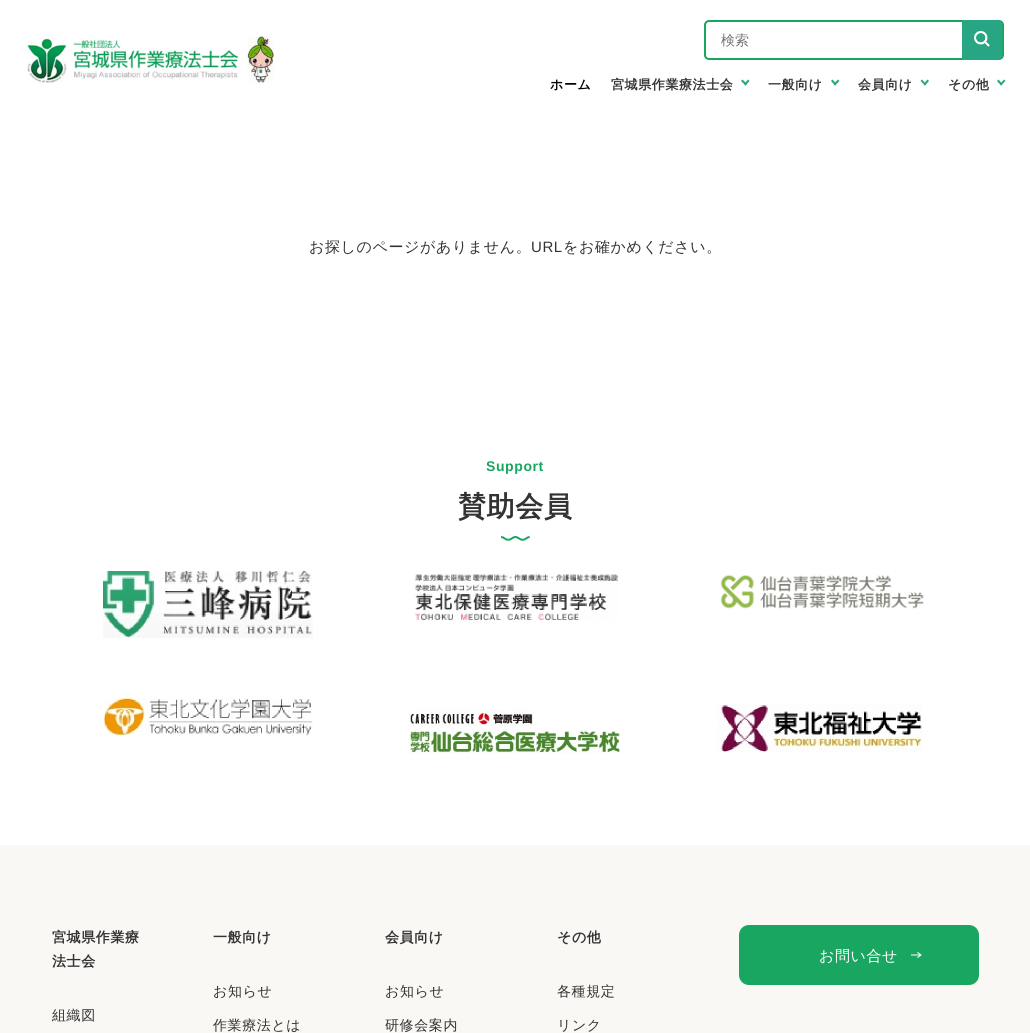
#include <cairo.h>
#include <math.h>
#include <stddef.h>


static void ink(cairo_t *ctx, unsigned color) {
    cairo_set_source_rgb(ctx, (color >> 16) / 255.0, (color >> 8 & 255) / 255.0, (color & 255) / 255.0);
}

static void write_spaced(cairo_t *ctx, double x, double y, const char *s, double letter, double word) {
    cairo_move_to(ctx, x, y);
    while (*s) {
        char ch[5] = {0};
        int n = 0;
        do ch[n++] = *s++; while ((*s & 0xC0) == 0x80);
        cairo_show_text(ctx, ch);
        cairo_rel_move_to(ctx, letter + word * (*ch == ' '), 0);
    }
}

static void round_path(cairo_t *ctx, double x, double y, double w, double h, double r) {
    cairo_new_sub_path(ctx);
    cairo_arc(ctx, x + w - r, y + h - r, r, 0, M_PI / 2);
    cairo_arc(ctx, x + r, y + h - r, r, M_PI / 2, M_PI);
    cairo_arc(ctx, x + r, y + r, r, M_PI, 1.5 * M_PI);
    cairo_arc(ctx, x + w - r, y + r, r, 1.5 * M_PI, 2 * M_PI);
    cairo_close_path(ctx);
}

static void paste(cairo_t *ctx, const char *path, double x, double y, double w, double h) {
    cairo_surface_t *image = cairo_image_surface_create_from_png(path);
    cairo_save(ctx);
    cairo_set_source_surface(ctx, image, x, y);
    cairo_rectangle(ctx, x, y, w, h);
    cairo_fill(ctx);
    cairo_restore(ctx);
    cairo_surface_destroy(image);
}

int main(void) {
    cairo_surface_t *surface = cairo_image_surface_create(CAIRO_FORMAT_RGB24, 1030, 1033);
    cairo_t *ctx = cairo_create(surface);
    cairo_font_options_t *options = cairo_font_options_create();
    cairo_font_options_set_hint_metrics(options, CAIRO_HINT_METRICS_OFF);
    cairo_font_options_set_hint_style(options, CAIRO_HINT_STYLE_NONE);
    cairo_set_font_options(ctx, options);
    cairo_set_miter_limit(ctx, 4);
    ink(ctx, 0xFFFFFF);
    cairo_paint(ctx);
    paste(ctx, "media/1.png", 27, 36, 247, 47);
    round_path(ctx, 705, 21, 298, 38, 4);
    ink(ctx, 0x19A661);
    cairo_stroke(ctx);
    cairo_select_font_face(ctx, "WenQuanYi Zen Hei Medium", CAIRO_FONT_SLANT_NORMAL, CAIRO_FONT_WEIGHT_NORMAL);
    cairo_set_font_size(ctx, 14);
    ink(ctx, 0x757575);
    cairo_move_to(ctx, 721, 45);
    cairo_show_text(ctx, "検索");
    ink(ctx, 0x28A583);
    cairo_new_path(ctx);
    cairo_move_to(ctx, 962, 20);
    cairo_line_to(ctx, 997, 20);
    cairo_curve_to(ctx, 1000, 20, 1002, 22, 1002, 25);
    cairo_line_to(ctx, 1002, 55);
    cairo_curve_to(ctx, 1002, 58, 1000, 60, 997, 60);
    cairo_line_to(ctx, 962, 60);
    cairo_close_path(ctx);
    cairo_fill(ctx);
    paste(ctx, "media/2.png", 974, 31, 16, 16);
    cairo_select_font_face(ctx, "WenQuanYi Zen Hei", CAIRO_FONT_SLANT_NORMAL, CAIRO_FONT_WEIGHT_BOLD);
    cairo_set_font_size(ctx, 13);
    ink(ctx, 0x000000);
    write_spaced(ctx, 550, 89, "ホーム", 0.6, 0);
    ink(ctx, 0x333333);
    write_spaced(ctx, 611, 89, "宮城県作業療法士会", 0.6, 0);
    ink(ctx, 0x28A583);
    cairo_new_path(ctx);
    cairo_move_to(ctx, 748, 79.5);
    cairo_line_to(ctx, 749.5, 81);
    cairo_line_to(ctx, 745.5, 85.5);
    cairo_line_to(ctx, 744, 84);
    cairo_close_path(ctx);
    cairo_fill(ctx);
    cairo_new_path(ctx);
    cairo_move_to(ctx, 742.5, 79.5);
    cairo_line_to(ctx, 747, 84);
    cairo_line_to(ctx, 745.5, 85.5);
    cairo_line_to(ctx, 741, 81);
    cairo_close_path(ctx);
    cairo_fill(ctx);
    ink(ctx, 0x333333);
    write_spaced(ctx, 768, 89, "一般向け", 0.6, 0);
    ink(ctx, 0x28A583);
    cairo_new_path(ctx);
    cairo_move_to(ctx, 838, 79.5);
    cairo_line_to(ctx, 839.5, 81);
    cairo_line_to(ctx, 835, 85.5);
    cairo_line_to(ctx, 833.5, 84);
    cairo_close_path(ctx);
    cairo_fill(ctx);
    cairo_new_path(ctx);
    cairo_move_to(ctx, 832.5, 79.5);
    cairo_line_to(ctx, 836.5, 84);
    cairo_line_to(ctx, 835, 85.5);
    cairo_line_to(ctx, 831, 81);
    cairo_close_path(ctx);
    cairo_fill(ctx);
    ink(ctx, 0x333333);
    write_spaced(ctx, 858, 89, "会員向け", 0.6, 0);
    ink(ctx, 0x28A583);
    cairo_new_path(ctx);
    cairo_move_to(ctx, 927.5, 79.5);
    cairo_line_to(ctx, 929, 81);
    cairo_line_to(ctx, 925, 85.5);
    cairo_line_to(ctx, 923.5, 84);
    cairo_close_path(ctx);
    cairo_fill(ctx);
    cairo_new_path(ctx);
    cairo_move_to(ctx, 922, 79.5);
    cairo_line_to(ctx, 926, 84);
    cairo_line_to(ctx, 925, 85.5);
    cairo_line_to(ctx, 920.5, 81);
    cairo_close_path(ctx);
    cairo_fill(ctx);
    ink(ctx, 0x333333);
    write_spaced(ctx, 948, 89, "その他", 0.6, 0);
    ink(ctx, 0x28A583);
    cairo_new_path(ctx);
    cairo_move_to(ctx, 1004, 79.5);
    cairo_line_to(ctx, 1005.5, 81);
    cairo_line_to(ctx, 1001, 85.5);
    cairo_line_to(ctx, 1000, 84);
    cairo_close_path(ctx);
    cairo_fill(ctx);
    cairo_new_path(ctx);
    cairo_move_to(ctx, 998.5, 79.5);
    cairo_line_to(ctx, 1002.5, 84);
    cairo_line_to(ctx, 1001, 85.5);
    cairo_line_to(ctx, 997, 81);
    cairo_close_path(ctx);
    cairo_fill(ctx);
    cairo_select_font_face(ctx, "WenQuanYi Zen Hei Medium", CAIRO_FONT_SLANT_NORMAL, CAIRO_FONT_WEIGHT_NORMAL);
    cairo_set_font_size(ctx, 15);
    ink(ctx, 0x333333);
    write_spaced(ctx, 309, 252, "お探しのページがありません。", 0.6, 0);
    cairo_select_font_face(ctx, "Liberation Sans", CAIRO_FONT_SLANT_NORMAL, CAIRO_FONT_WEIGHT_NORMAL);
    write_spaced(ctx, 531, 252, "URL", 0.6, 0);
    cairo_select_font_face(ctx, "WenQuanYi Zen Hei Medium", CAIRO_FONT_SLANT_NORMAL, CAIRO_FONT_WEIGHT_NORMAL);
    write_spaced(ctx, 563, 252, "をお確かめください。", 0.6, 0);
    cairo_select_font_face(ctx, "Liberation Sans", CAIRO_FONT_SLANT_NORMAL, CAIRO_FONT_WEIGHT_BOLD);
    cairo_set_font_size(ctx, 14);
    ink(ctx, 0x19A661);
    write_spaced(ctx, 486, 471, "Support", 0.6, 0);
    cairo_select_font_face(ctx, "WenQuanYi Zen Hei", CAIRO_FONT_SLANT_NORMAL, CAIRO_FONT_WEIGHT_BOLD);
    cairo_set_font_size(ctx, 28);
    ink(ctx, 0x333333);
    write_spaced(ctx, 458, 516, "賛助会員", 0.6, 0);
    paste(ctx, "media/3.png", 501, 536, 29, 5);
    paste(ctx, "media/4.png", 103, 571, 210, 67);
    paste(ctx, "media/5.png", 414, 573, 204, 48);
    paste(ctx, "media/6.png", 720, 574, 204, 35);
    paste(ctx, "media/7.png", 103, 698, 210, 38);
    paste(ctx, "media/8.png", 410, 709, 210, 45);
    paste(ctx, "media/9.png", 717, 704, 205, 48);
    ink(ctx, 0xFAF8F5);
    cairo_rectangle(ctx, 0, 845, 1030, 188);
    cairo_fill(ctx);
    cairo_set_font_size(ctx, 14);
    ink(ctx, 0x333333);
    write_spaced(ctx, 52, 942, "宮城県作業療", 0.6, 0);
    write_spaced(ctx, 52, 966, "法士会", 0.6, 0);
    cairo_select_font_face(ctx, "WenQuanYi Zen Hei Medium", CAIRO_FONT_SLANT_NORMAL, CAIRO_FONT_WEIGHT_NORMAL);
    write_spaced(ctx, 52, 1020, "組織図", 0.6, 0);
    cairo_select_font_face(ctx, "WenQuanYi Zen Hei", CAIRO_FONT_SLANT_NORMAL, CAIRO_FONT_WEIGHT_BOLD);
    write_spaced(ctx, 213, 942, "一般向け", 0.6, 0);
    cairo_select_font_face(ctx, "WenQuanYi Zen Hei Medium", CAIRO_FONT_SLANT_NORMAL, CAIRO_FONT_WEIGHT_NORMAL);
    write_spaced(ctx, 213, 996, "お知らせ", 0.6, 0);
    write_spaced(ctx, 213, 1030, "作業療法とは", 0.6, 0);
    cairo_select_font_face(ctx, "WenQuanYi Zen Hei", CAIRO_FONT_SLANT_NORMAL, CAIRO_FONT_WEIGHT_BOLD);
    write_spaced(ctx, 385, 942, "会員向け", 0.6, 0);
    cairo_select_font_face(ctx, "WenQuanYi Zen Hei Medium", CAIRO_FONT_SLANT_NORMAL, CAIRO_FONT_WEIGHT_NORMAL);
    write_spaced(ctx, 385, 996, "お知らせ", 0.6, 0);
    write_spaced(ctx, 385, 1030, "研修会案内", 0.6, 0);
    cairo_select_font_face(ctx, "WenQuanYi Zen Hei", CAIRO_FONT_SLANT_NORMAL, CAIRO_FONT_WEIGHT_BOLD);
    write_spaced(ctx, 557, 942, "その他", 0.6, 0);
    cairo_select_font_face(ctx, "WenQuanYi Zen Hei Medium", CAIRO_FONT_SLANT_NORMAL, CAIRO_FONT_WEIGHT_NORMAL);
    write_spaced(ctx, 557, 996, "各種規定", 0.6, 0);
    write_spaced(ctx, 557, 1030, "リンク", 0.6, 0);
    ink(ctx, 0x19A661);
    round_path(ctx, 739, 925, 240, 60, 10);
    cairo_fill(ctx);
    cairo_set_font_size(ctx, 15);
    ink(ctx, 0xFFFFFF);
    write_spaced(ctx, 819, 961, "お問い合せ", 0.6, 0);
    paste(ctx, "media/10.png", 911, 952, 11, 6);
    cairo_surface_write_to_png(surface, "image.png");
    cairo_font_options_destroy(options);
    cairo_destroy(ctx);
    cairo_surface_destroy(surface);
    return 0;
}
